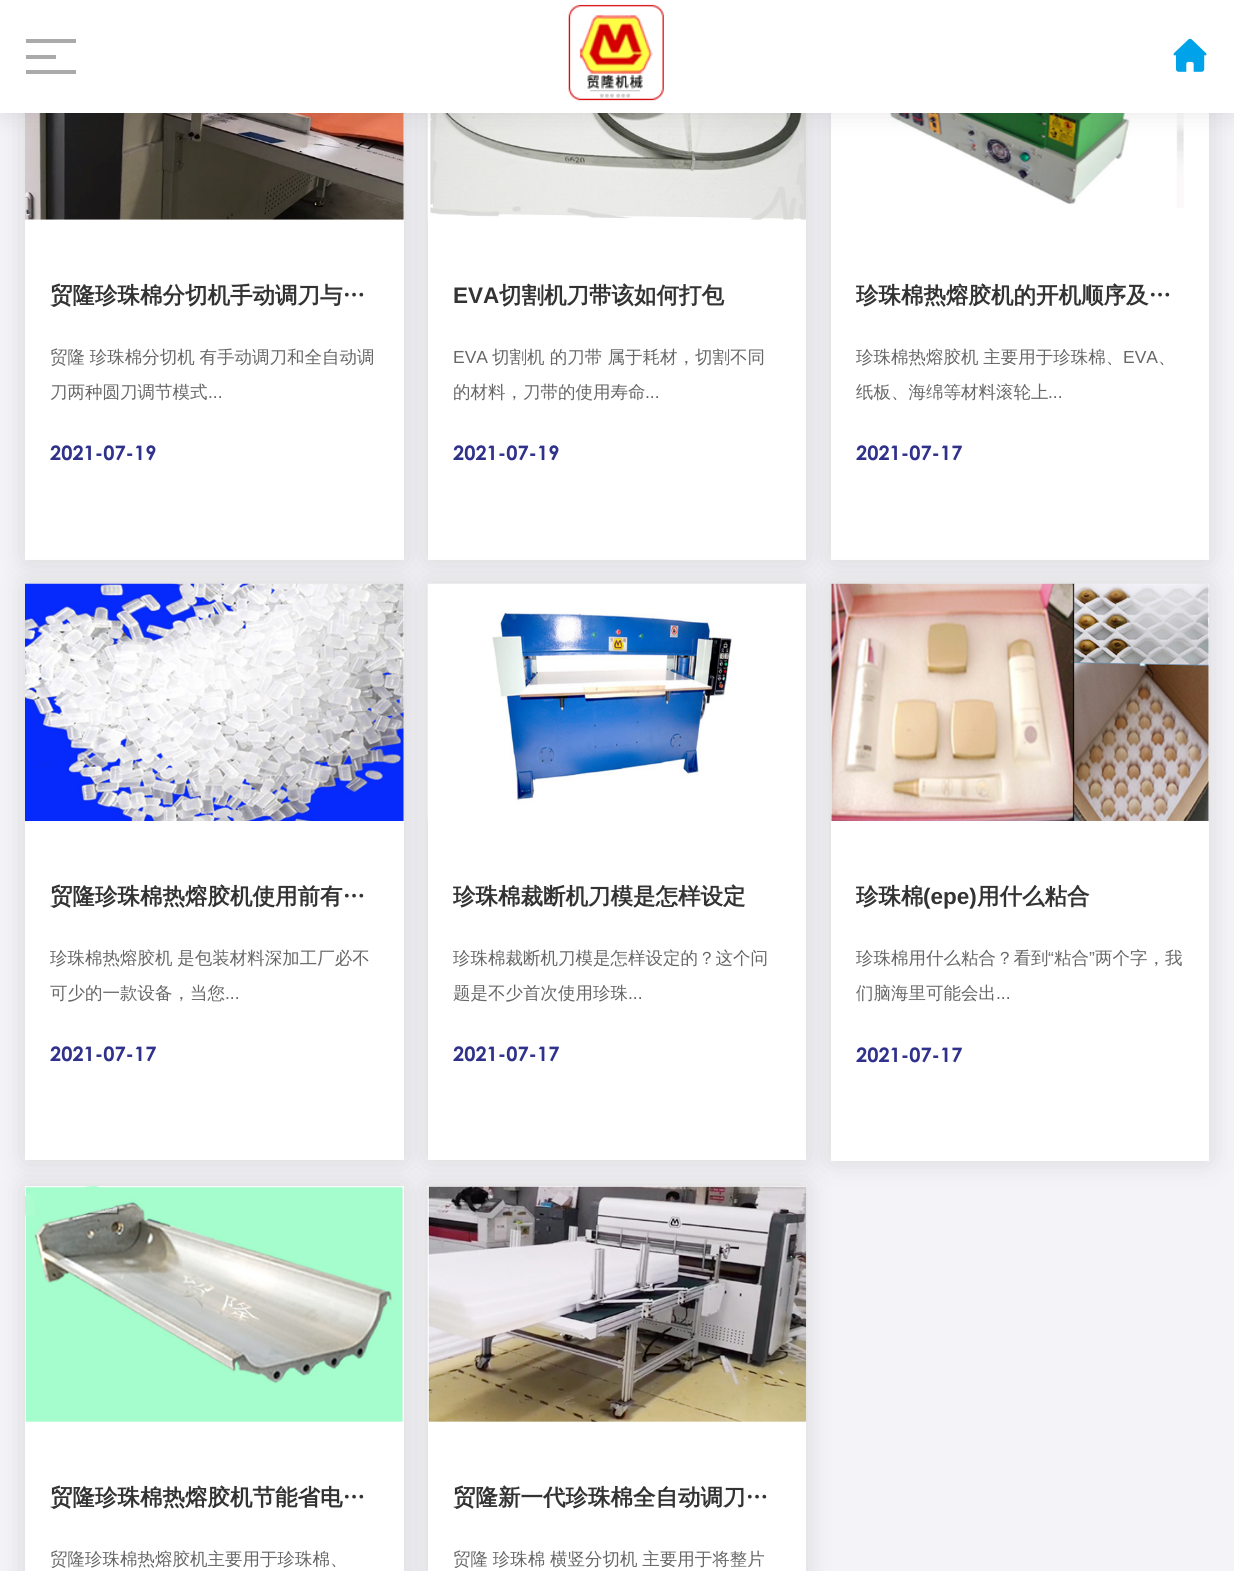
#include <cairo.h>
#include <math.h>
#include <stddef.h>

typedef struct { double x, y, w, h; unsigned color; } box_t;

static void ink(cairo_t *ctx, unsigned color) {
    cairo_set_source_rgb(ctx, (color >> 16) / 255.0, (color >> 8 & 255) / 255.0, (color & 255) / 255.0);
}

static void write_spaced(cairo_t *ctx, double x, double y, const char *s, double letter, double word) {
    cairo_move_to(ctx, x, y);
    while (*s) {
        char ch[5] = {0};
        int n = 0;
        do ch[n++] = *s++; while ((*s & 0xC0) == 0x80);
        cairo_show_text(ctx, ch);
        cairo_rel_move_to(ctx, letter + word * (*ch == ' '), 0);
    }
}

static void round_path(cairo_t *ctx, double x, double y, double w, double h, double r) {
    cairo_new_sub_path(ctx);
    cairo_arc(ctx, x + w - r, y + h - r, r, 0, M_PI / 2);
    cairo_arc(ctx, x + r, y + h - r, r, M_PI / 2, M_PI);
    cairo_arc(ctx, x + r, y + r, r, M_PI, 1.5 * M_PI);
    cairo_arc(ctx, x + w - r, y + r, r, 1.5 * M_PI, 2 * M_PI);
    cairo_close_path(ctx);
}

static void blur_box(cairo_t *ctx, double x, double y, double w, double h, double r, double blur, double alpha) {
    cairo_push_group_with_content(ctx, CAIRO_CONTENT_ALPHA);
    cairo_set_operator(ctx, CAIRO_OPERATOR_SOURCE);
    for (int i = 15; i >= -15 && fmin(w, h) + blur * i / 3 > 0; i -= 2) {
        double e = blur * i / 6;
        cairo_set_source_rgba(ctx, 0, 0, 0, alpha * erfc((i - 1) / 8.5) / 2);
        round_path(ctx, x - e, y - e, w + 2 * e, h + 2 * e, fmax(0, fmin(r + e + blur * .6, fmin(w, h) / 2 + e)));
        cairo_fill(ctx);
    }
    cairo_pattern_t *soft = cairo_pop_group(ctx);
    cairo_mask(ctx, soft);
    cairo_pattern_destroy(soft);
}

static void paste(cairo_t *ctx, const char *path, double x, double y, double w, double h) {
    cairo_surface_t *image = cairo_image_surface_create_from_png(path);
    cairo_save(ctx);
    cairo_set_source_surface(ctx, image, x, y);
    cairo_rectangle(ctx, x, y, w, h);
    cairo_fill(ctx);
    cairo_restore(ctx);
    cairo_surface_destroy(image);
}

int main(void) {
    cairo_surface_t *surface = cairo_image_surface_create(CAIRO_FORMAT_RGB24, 1234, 1571);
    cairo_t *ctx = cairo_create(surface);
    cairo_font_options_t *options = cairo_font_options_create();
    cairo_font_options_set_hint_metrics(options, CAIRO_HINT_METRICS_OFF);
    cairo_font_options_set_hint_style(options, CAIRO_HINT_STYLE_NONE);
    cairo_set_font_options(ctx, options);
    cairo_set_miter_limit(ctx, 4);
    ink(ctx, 0xF4F4F8);
    cairo_paint(ctx);
    ink(ctx, 0x000000);
    blur_box(ctx, 25, -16, 379, 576, 0, 15, 0.12);
    ink(ctx, 0xFFFFFF);
    cairo_rectangle(ctx, 25, 113, 379, 447);
    cairo_fill(ctx);
    paste(ctx, "media/3.png", 25, 113, 379, 107);
    ink(ctx, 0x000000);
    blur_box(ctx, 428, -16, 378, 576, 0, 15, 0.12);
    ink(ctx, 0xFFFFFF);
    cairo_rectangle(ctx, 428, 219, 378, 341);
    cairo_fill(ctx);
    paste(ctx, "media/4.png", 427, 113, 379, 107);
    ink(ctx, 0x000000);
    blur_box(ctx, 831, -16, 378, 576, 0, 15, 0.12);
    ink(ctx, 0xFFFFFF);
    cairo_rectangle(ctx, 831, 113, 378, 447);
    cairo_fill(ctx);
    paste(ctx, "media/5.png", 884, 113, 300, 95);
    ink(ctx, 0x000000);
    blur_box(ctx, 0, 0, 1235, 113, 0, 12.5, 0.1);
    {
        static const box_t items[] = {
            {0, 0, 1234, 113, 0xFFFFFF},
            {26, 39, 50, 4, 0xAAAAAA},
            {26, 55, 30, 4, 0xAAAAAA},
            {26, 70, 50, 4, 0xAAAAAA},
        };
        for (size_t i = 0; i < sizeof items / sizeof *items; i++) {
            ink(ctx, items[i].color);
            cairo_rectangle(ctx, items[i].x, items[i].y, items[i].w, items[i].h);
            cairo_fill(ctx);
        }
    }
    paste(ctx, "media/1.png", 568, 4, 96, 97);
    paste(ctx, "media/2.png", 1173, 38, 34, 34);
    cairo_select_font_face(ctx, "WenQuanYi Zen Hei", CAIRO_FONT_SLANT_NORMAL, CAIRO_FONT_WEIGHT_BOLD);
    cairo_set_font_size(ctx, 22.5);
    ink(ctx, 0x333333);
    cairo_move_to(ctx, 50, 303);
    cairo_show_text(ctx, "贸隆珍珠棉分切机手动调刀与…");
    cairo_select_font_face(ctx, "WenQuanYi Zen Hei Medium", CAIRO_FONT_SLANT_NORMAL, CAIRO_FONT_WEIGHT_NORMAL);
    cairo_set_font_size(ctx, 17.5);
    ink(ctx, 0x666666);
    write_spaced(ctx, 50, 363, "贸隆 珍珠棉分切机 有手动调刀和全自动调", 0, -0.5);
    cairo_move_to(ctx, 50, 398);
    cairo_show_text(ctx, "刀两种圆刀调节模式");
    cairo_select_font_face(ctx, "Liberation Sans", CAIRO_FONT_SLANT_NORMAL, CAIRO_FONT_WEIGHT_NORMAL);
    cairo_move_to(ctx, 208, 398);
    cairo_show_text(ctx, "...");
    cairo_select_font_face(ctx, "Century Gothic", CAIRO_FONT_SLANT_NORMAL, CAIRO_FONT_WEIGHT_BOLD);
    cairo_set_font_size(ctx, 20);
    ink(ctx, 0x2F318B);
    cairo_move_to(ctx, 50, 460);
    cairo_show_text(ctx, "2021-07-19");
    cairo_select_font_face(ctx, "Liberation Sans", CAIRO_FONT_SLANT_NORMAL, CAIRO_FONT_WEIGHT_BOLD);
    cairo_set_font_size(ctx, 22.5);
    ink(ctx, 0x333333);
    cairo_move_to(ctx, 453, 303);
    cairo_show_text(ctx, "EVA");
    cairo_select_font_face(ctx, "WenQuanYi Zen Hei", CAIRO_FONT_SLANT_NORMAL, CAIRO_FONT_WEIGHT_BOLD);
    cairo_move_to(ctx, 499, 303);
    cairo_show_text(ctx, "切割机刀带该如何打包");
    cairo_select_font_face(ctx, "Liberation Sans", CAIRO_FONT_SLANT_NORMAL, CAIRO_FONT_WEIGHT_NORMAL);
    cairo_set_font_size(ctx, 17.5);
    ink(ctx, 0x666666);
    cairo_move_to(ctx, 453, 363);
    cairo_show_text(ctx, "EVA");
    cairo_select_font_face(ctx, "WenQuanYi Zen Hei Medium", CAIRO_FONT_SLANT_NORMAL, CAIRO_FONT_WEIGHT_NORMAL);
    cairo_move_to(ctx, 492, 363);
    cairo_show_text(ctx, "切割机 的刀带 属于耗材，切割不同");
    cairo_move_to(ctx, 453, 398);
    cairo_show_text(ctx, "的材料，刀带的使用寿命");
    cairo_select_font_face(ctx, "Liberation Sans", CAIRO_FONT_SLANT_NORMAL, CAIRO_FONT_WEIGHT_NORMAL);
    cairo_move_to(ctx, 645, 398);
    cairo_show_text(ctx, "...");
    cairo_select_font_face(ctx, "Century Gothic", CAIRO_FONT_SLANT_NORMAL, CAIRO_FONT_WEIGHT_BOLD);
    cairo_set_font_size(ctx, 20);
    ink(ctx, 0x2F318B);
    cairo_move_to(ctx, 453, 460);
    cairo_show_text(ctx, "2021-07-19");
    cairo_save(ctx);
    cairo_rectangle(ctx, 856, 283, 328, 25);
    cairo_clip(ctx);
    cairo_select_font_face(ctx, "WenQuanYi Zen Hei", CAIRO_FONT_SLANT_NORMAL, CAIRO_FONT_WEIGHT_BOLD);
    cairo_set_font_size(ctx, 22.5);
    ink(ctx, 0x333333);
    cairo_move_to(ctx, 856, 303);
    cairo_show_text(ctx, "珍珠棉热熔胶机的开机顺序及…");
    cairo_restore(ctx);
    cairo_select_font_face(ctx, "WenQuanYi Zen Hei Medium", CAIRO_FONT_SLANT_NORMAL, CAIRO_FONT_WEIGHT_NORMAL);
    cairo_set_font_size(ctx, 17.5);
    ink(ctx, 0x666666);
    write_spaced(ctx, 856, 363, "珍珠棉热熔胶机 主要用于珍珠棉、", 0, -0.5);
    cairo_select_font_face(ctx, "Liberation Sans", CAIRO_FONT_SLANT_NORMAL, CAIRO_FONT_WEIGHT_NORMAL);
    cairo_move_to(ctx, 1123, 363);
    cairo_show_text(ctx, "EVA");
    cairo_select_font_face(ctx, "WenQuanYi Zen Hei Medium", CAIRO_FONT_SLANT_NORMAL, CAIRO_FONT_WEIGHT_NORMAL);
    cairo_move_to(ctx, 1158, 363);
    cairo_show_text(ctx, "、");
    cairo_move_to(ctx, 856, 398);
    cairo_show_text(ctx, "纸板、海绵等材料滚轮上");
    cairo_select_font_face(ctx, "Liberation Sans", CAIRO_FONT_SLANT_NORMAL, CAIRO_FONT_WEIGHT_NORMAL);
    cairo_move_to(ctx, 1048, 398);
    cairo_show_text(ctx, "...");
    cairo_select_font_face(ctx, "Century Gothic", CAIRO_FONT_SLANT_NORMAL, CAIRO_FONT_WEIGHT_BOLD);
    cairo_set_font_size(ctx, 20);
    ink(ctx, 0x2F318B);
    cairo_move_to(ctx, 856, 460);
    cairo_show_text(ctx, "2021-07-17");
    ink(ctx, 0x000000);
    blur_box(ctx, 25, 584, 379, 576, 0, 15, 0.12);
    ink(ctx, 0xFFFFFF);
    cairo_rectangle(ctx, 25, 584, 379, 576);
    cairo_fill(ctx);
    paste(ctx, "media/6.png", 25, 583, 379, 238);
    cairo_select_font_face(ctx, "WenQuanYi Zen Hei", CAIRO_FONT_SLANT_NORMAL, CAIRO_FONT_WEIGHT_BOLD);
    cairo_set_font_size(ctx, 22.5);
    ink(ctx, 0x333333);
    cairo_move_to(ctx, 50, 904);
    cairo_show_text(ctx, "贸隆珍珠棉热熔胶机使用前有…");
    cairo_select_font_face(ctx, "WenQuanYi Zen Hei Medium", CAIRO_FONT_SLANT_NORMAL, CAIRO_FONT_WEIGHT_NORMAL);
    cairo_set_font_size(ctx, 17.5);
    ink(ctx, 0x666666);
    write_spaced(ctx, 50, 964, "珍珠棉热熔胶机 是包装材料深加工厂必不", 0, -0.5);
    cairo_move_to(ctx, 50, 999);
    cairo_show_text(ctx, "可少的一款设备，当您");
    cairo_select_font_face(ctx, "Liberation Sans", CAIRO_FONT_SLANT_NORMAL, CAIRO_FONT_WEIGHT_NORMAL);
    cairo_move_to(ctx, 225, 999);
    cairo_show_text(ctx, "...");
    cairo_select_font_face(ctx, "Century Gothic", CAIRO_FONT_SLANT_NORMAL, CAIRO_FONT_WEIGHT_BOLD);
    cairo_set_font_size(ctx, 20);
    ink(ctx, 0x2F318B);
    cairo_move_to(ctx, 50, 1061);
    cairo_show_text(ctx, "2021-07-17");
    ink(ctx, 0x000000);
    blur_box(ctx, 428, 584, 378, 576, 0, 15, 0.12);
    ink(ctx, 0xFFFFFF);
    cairo_rectangle(ctx, 428, 821, 378, 339);
    cairo_fill(ctx);
    paste(ctx, "media/7.png", 427, 583, 379, 238);
    cairo_select_font_face(ctx, "WenQuanYi Zen Hei", CAIRO_FONT_SLANT_NORMAL, CAIRO_FONT_WEIGHT_BOLD);
    cairo_set_font_size(ctx, 22.5);
    ink(ctx, 0x333333);
    cairo_move_to(ctx, 453, 904);
    cairo_show_text(ctx, "珍珠棉裁断机刀模是怎样设定");
    cairo_select_font_face(ctx, "WenQuanYi Zen Hei Medium", CAIRO_FONT_SLANT_NORMAL, CAIRO_FONT_WEIGHT_NORMAL);
    cairo_set_font_size(ctx, 17.5);
    ink(ctx, 0x666666);
    cairo_move_to(ctx, 453, 964);
    cairo_show_text(ctx, "珍珠棉裁断机刀模是怎样设定的？这个问");
    cairo_move_to(ctx, 453, 999);
    cairo_show_text(ctx, "题是不少首次使用珍珠");
    cairo_select_font_face(ctx, "Liberation Sans", CAIRO_FONT_SLANT_NORMAL, CAIRO_FONT_WEIGHT_NORMAL);
    cairo_move_to(ctx, 628, 999);
    cairo_show_text(ctx, "...");
    cairo_select_font_face(ctx, "Century Gothic", CAIRO_FONT_SLANT_NORMAL, CAIRO_FONT_WEIGHT_BOLD);
    cairo_set_font_size(ctx, 20);
    ink(ctx, 0x2F318B);
    cairo_move_to(ctx, 453, 1061);
    cairo_show_text(ctx, "2021-07-17");
    ink(ctx, 0x000000);
    blur_box(ctx, 831, 584, 378, 577, 0, 15, 0.12);
    ink(ctx, 0xFFFFFF);
    cairo_rectangle(ctx, 831, 584, 378, 577);
    cairo_fill(ctx);
    paste(ctx, "media/8.png", 831, 583, 378, 238);
    cairo_save(ctx);
    cairo_rectangle(ctx, 856, 884, 328, 25);
    cairo_clip(ctx);
    cairo_select_font_face(ctx, "WenQuanYi Zen Hei", CAIRO_FONT_SLANT_NORMAL, CAIRO_FONT_WEIGHT_BOLD);
    cairo_set_font_size(ctx, 22.5);
    ink(ctx, 0x333333);
    cairo_move_to(ctx, 856, 904);
    cairo_show_text(ctx, "珍珠棉");
    cairo_restore(ctx);
    cairo_select_font_face(ctx, "Liberation Sans", CAIRO_FONT_SLANT_NORMAL, CAIRO_FONT_WEIGHT_BOLD);
    cairo_set_font_size(ctx, 22.5);
    ink(ctx, 0x333333);
    cairo_move_to(ctx, 923, 904);
    cairo_show_text(ctx, "(epe)");
    cairo_select_font_face(ctx, "WenQuanYi Zen Hei", CAIRO_FONT_SLANT_NORMAL, CAIRO_FONT_WEIGHT_BOLD);
    cairo_move_to(ctx, 977, 904);
    cairo_show_text(ctx, "用什么粘合");
    cairo_select_font_face(ctx, "WenQuanYi Zen Hei Medium", CAIRO_FONT_SLANT_NORMAL, CAIRO_FONT_WEIGHT_NORMAL);
    cairo_set_font_size(ctx, 17.5);
    ink(ctx, 0x666666);
    cairo_move_to(ctx, 856, 964);
    cairo_show_text(ctx, "珍珠棉用什么粘合？看到");
    cairo_select_font_face(ctx, "Liberation Sans", CAIRO_FONT_SLANT_NORMAL, CAIRO_FONT_WEIGHT_NORMAL);
    cairo_move_to(ctx, 1048, 964);
    cairo_show_text(ctx, "“");
    cairo_select_font_face(ctx, "WenQuanYi Zen Hei Medium", CAIRO_FONT_SLANT_NORMAL, CAIRO_FONT_WEIGHT_NORMAL);
    cairo_move_to(ctx, 1054, 964);
    cairo_show_text(ctx, "粘合");
    cairo_select_font_face(ctx, "Liberation Sans", CAIRO_FONT_SLANT_NORMAL, CAIRO_FONT_WEIGHT_NORMAL);
    cairo_move_to(ctx, 1089, 964);
    cairo_show_text(ctx, "”");
    cairo_select_font_face(ctx, "WenQuanYi Zen Hei Medium", CAIRO_FONT_SLANT_NORMAL, CAIRO_FONT_WEIGHT_NORMAL);
    cairo_move_to(ctx, 1095, 964);
    cairo_show_text(ctx, "两个字，我");
    cairo_move_to(ctx, 856, 999);
    cairo_show_text(ctx, "们脑海里可能会出");
    cairo_select_font_face(ctx, "Liberation Sans", CAIRO_FONT_SLANT_NORMAL, CAIRO_FONT_WEIGHT_NORMAL);
    cairo_move_to(ctx, 996, 999);
    cairo_show_text(ctx, "...");
    cairo_select_font_face(ctx, "Century Gothic", CAIRO_FONT_SLANT_NORMAL, CAIRO_FONT_WEIGHT_BOLD);
    cairo_set_font_size(ctx, 20);
    ink(ctx, 0x2F318B);
    cairo_move_to(ctx, 856, 1062);
    cairo_show_text(ctx, "2021-07-17");
    ink(ctx, 0x000000);
    blur_box(ctx, 25, 1186, 379, 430, 0, 15, 0.12);
    ink(ctx, 0xFFFFFF);
    cairo_rectangle(ctx, 25, 1186, 379, 385);
    cairo_fill(ctx);
    paste(ctx, "media/9.png", 25, 1186, 378, 236);
    cairo_select_font_face(ctx, "WenQuanYi Zen Hei", CAIRO_FONT_SLANT_NORMAL, CAIRO_FONT_WEIGHT_BOLD);
    cairo_set_font_size(ctx, 22.5);
    ink(ctx, 0x333333);
    cairo_move_to(ctx, 50, 1505);
    cairo_show_text(ctx, "贸隆珍珠棉热熔胶机节能省电…");
    cairo_select_font_face(ctx, "WenQuanYi Zen Hei Medium", CAIRO_FONT_SLANT_NORMAL, CAIRO_FONT_WEIGHT_NORMAL);
    cairo_set_font_size(ctx, 17.5);
    ink(ctx, 0x666666);
    cairo_move_to(ctx, 50, 1565);
    cairo_show_text(ctx, "贸隆珍珠棉热熔胶机主要用于珍珠棉、");
    ink(ctx, 0x000000);
    blur_box(ctx, 428, 1186, 378, 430, 0, 15, 0.12);
    ink(ctx, 0xFFFFFF);
    cairo_rectangle(ctx, 428, 1422, 378, 149);
    cairo_fill(ctx);
    paste(ctx, "media/10.png", 427, 1186, 380, 236);
    cairo_select_font_face(ctx, "WenQuanYi Zen Hei", CAIRO_FONT_SLANT_NORMAL, CAIRO_FONT_WEIGHT_BOLD);
    cairo_set_font_size(ctx, 22.5);
    ink(ctx, 0x333333);
    cairo_move_to(ctx, 453, 1505);
    cairo_show_text(ctx, "贸隆新一代珍珠棉全自动调刀…");
    cairo_select_font_face(ctx, "WenQuanYi Zen Hei Medium", CAIRO_FONT_SLANT_NORMAL, CAIRO_FONT_WEIGHT_NORMAL);
    cairo_set_font_size(ctx, 17.5);
    ink(ctx, 0x666666);
    write_spaced(ctx, 453, 1565, "贸隆 珍珠棉 横竖分切机 主要用于将整片", 0, -0.5);
    cairo_surface_write_to_png(surface, "image.png");
    cairo_font_options_destroy(options);
    cairo_destroy(ctx);
    cairo_surface_destroy(surface);
    return 0;
}
